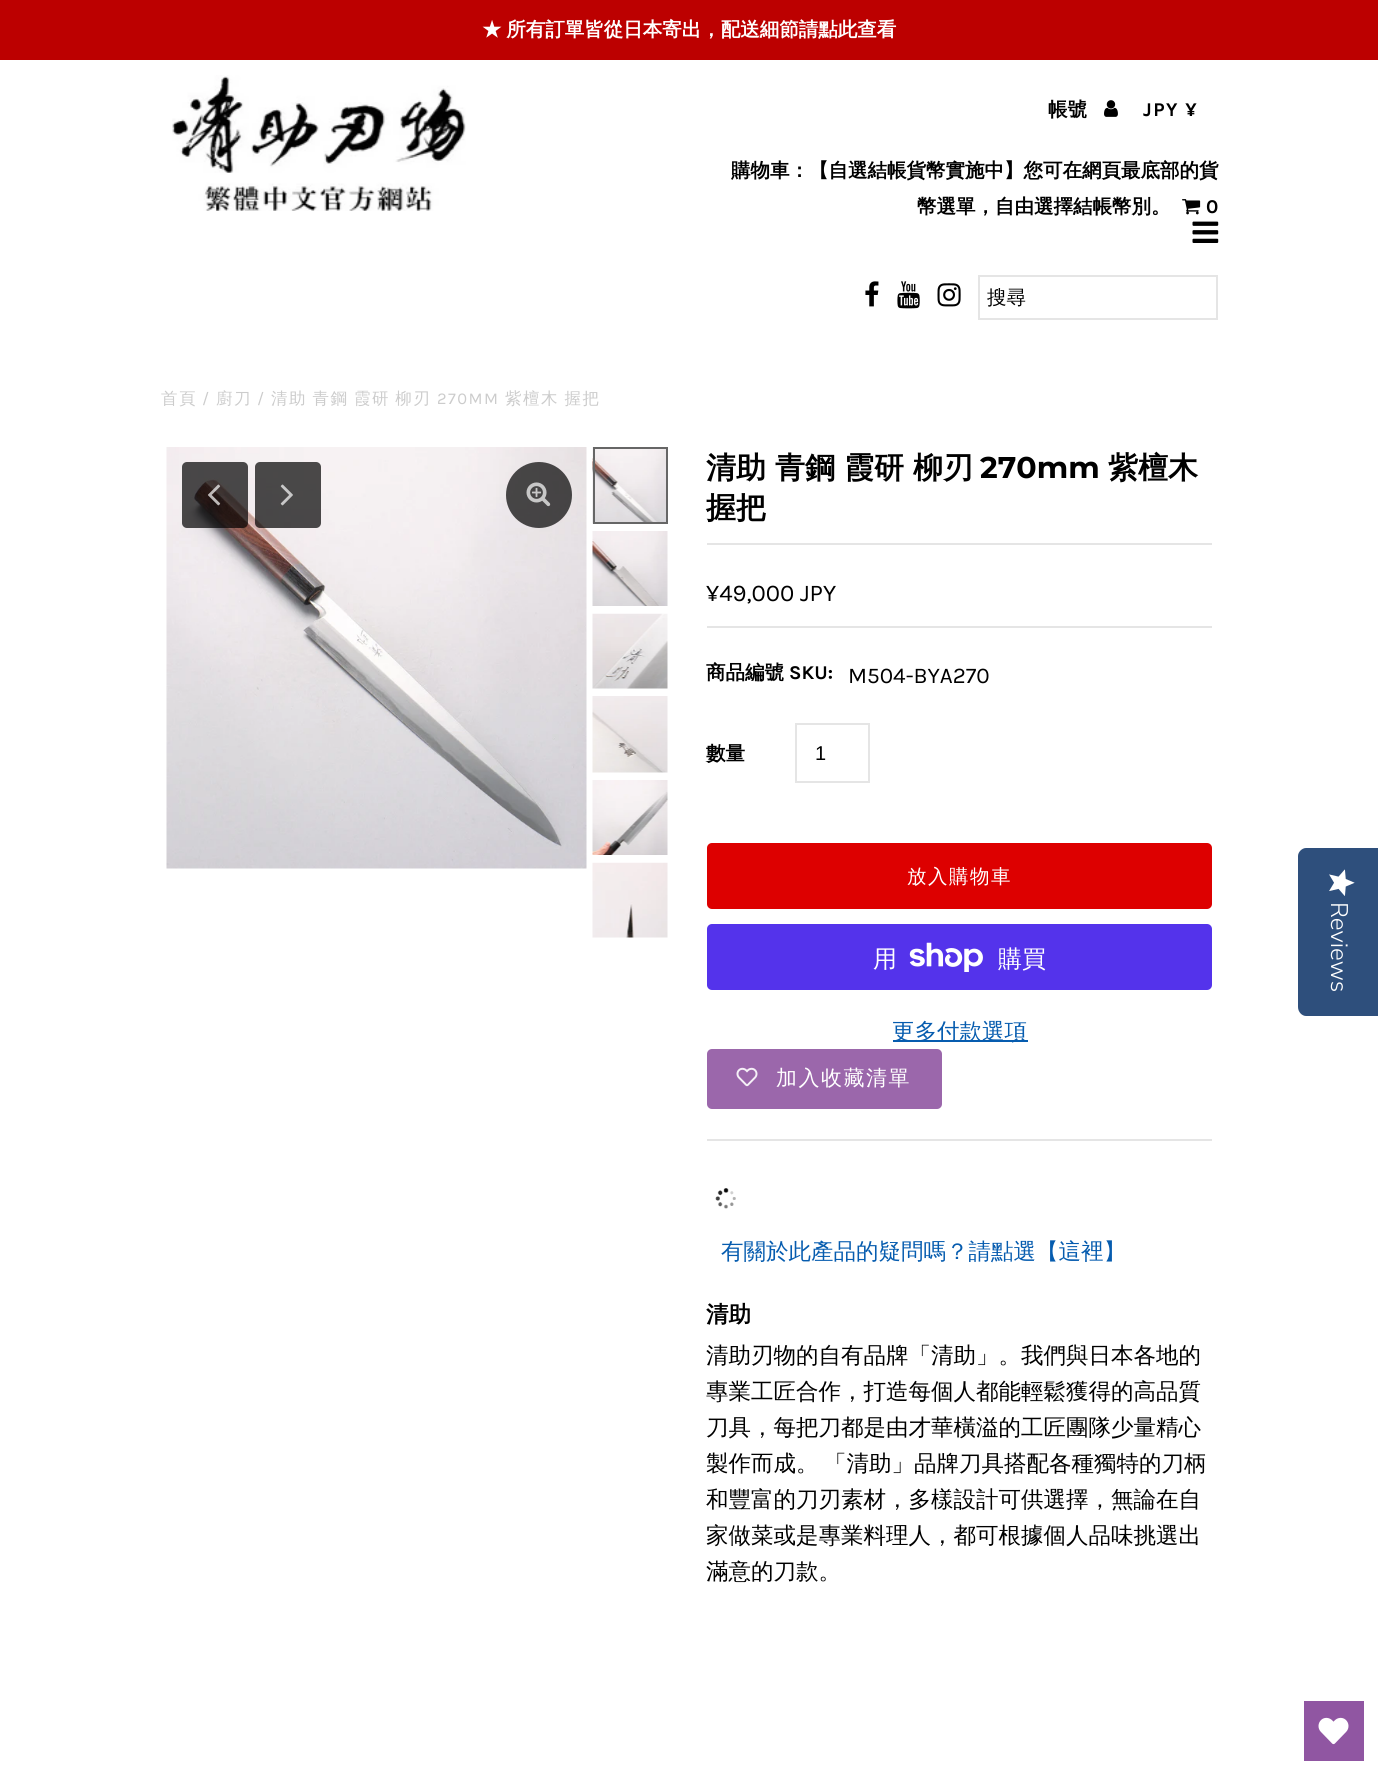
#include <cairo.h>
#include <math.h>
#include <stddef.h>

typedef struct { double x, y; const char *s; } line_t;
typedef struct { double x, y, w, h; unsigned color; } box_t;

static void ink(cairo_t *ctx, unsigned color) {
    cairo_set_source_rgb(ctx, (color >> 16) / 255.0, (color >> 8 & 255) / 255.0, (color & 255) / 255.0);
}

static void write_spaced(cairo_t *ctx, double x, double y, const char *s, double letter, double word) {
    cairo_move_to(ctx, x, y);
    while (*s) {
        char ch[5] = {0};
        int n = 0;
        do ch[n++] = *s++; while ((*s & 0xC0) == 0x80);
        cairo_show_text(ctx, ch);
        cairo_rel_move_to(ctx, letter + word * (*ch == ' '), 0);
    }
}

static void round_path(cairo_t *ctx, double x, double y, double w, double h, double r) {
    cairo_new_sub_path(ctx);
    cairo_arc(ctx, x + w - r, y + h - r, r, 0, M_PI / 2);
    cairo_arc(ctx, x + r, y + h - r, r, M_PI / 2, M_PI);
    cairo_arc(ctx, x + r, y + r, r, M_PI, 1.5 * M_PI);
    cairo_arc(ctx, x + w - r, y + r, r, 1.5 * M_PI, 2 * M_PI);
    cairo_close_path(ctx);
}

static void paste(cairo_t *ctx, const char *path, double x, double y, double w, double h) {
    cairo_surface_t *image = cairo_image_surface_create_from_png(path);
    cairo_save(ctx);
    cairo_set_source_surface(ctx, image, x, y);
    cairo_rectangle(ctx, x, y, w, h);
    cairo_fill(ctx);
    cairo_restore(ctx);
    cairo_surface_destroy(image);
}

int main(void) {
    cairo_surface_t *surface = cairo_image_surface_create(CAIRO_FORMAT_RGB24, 1378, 1776);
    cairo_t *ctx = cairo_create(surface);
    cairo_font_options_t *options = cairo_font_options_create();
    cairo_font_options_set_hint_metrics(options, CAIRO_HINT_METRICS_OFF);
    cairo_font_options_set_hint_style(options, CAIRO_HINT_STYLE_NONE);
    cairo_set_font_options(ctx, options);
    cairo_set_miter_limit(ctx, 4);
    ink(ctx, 0xFFFFFF);
    cairo_paint(ctx);
    ink(ctx, 0xBC0000);
    cairo_rectangle(ctx, 0, 0, 1378, 60);
    cairo_fill(ctx);
    cairo_select_font_face(ctx, "WenQuanYi Zen Hei", CAIRO_FONT_SLANT_NORMAL, CAIRO_FONT_WEIGHT_BOLD);
    cairo_set_font_size(ctx, 19.5);
    ink(ctx, 0xFFFFFF);
    write_spaced(ctx, 482, 36, "★ 所有訂單皆從日本寄出，配送細節請點此查看", 0, -1);
    paste(ctx, "media/1.png", 172, 75, 294, 136);
    ink(ctx, 0x000000);
    cairo_move_to(ctx, 1048, 116);
    cairo_show_text(ctx, "帳號");
    paste(ctx, "media/2.png", 1104, 100, 14, 17);
    cairo_select_font_face(ctx, "Karla", CAIRO_FONT_SLANT_NORMAL, CAIRO_FONT_WEIGHT_BOLD);
    write_spaced(ctx, 1143, 116, "JPY ¥", 1.5, 0);
    cairo_select_font_face(ctx, "WenQuanYi Zen Hei", CAIRO_FONT_SLANT_NORMAL, CAIRO_FONT_WEIGHT_BOLD);
    cairo_move_to(ctx, 731, 177);
    cairo_show_text(ctx, "購物車：【自選結帳貨幣實施中】您可在網頁最底部的貨");
    cairo_move_to(ctx, 917, 213);
    cairo_show_text(ctx, "幣選單，自由選擇結帳幣別。");
    paste(ctx, "media/3.png", 1182, 199, 19, 16);
    cairo_select_font_face(ctx, "Karla", CAIRO_FONT_SLANT_NORMAL, CAIRO_FONT_WEIGHT_BOLD);
    cairo_move_to(ctx, 1206, 213);
    cairo_show_text(ctx, "0");
    paste(ctx, "media/4.png", 1192, 221, 27, 22);
    paste(ctx, "media/5.png", 865, 281, 14, 26);
    paste(ctx, "media/6.png", 897, 281, 23, 28);
    paste(ctx, "media/7.png", 937, 283, 24, 24);
    cairo_rectangle(ctx, 979, 276, 238, 43);
    ink(ctx, 0xE5E5E5);
    cairo_stroke(ctx);
    cairo_select_font_face(ctx, "WenQuanYi Zen Hei Medium", CAIRO_FONT_SLANT_NORMAL, CAIRO_FONT_WEIGHT_NORMAL);
    ink(ctx, 0x000000);
    cairo_move_to(ctx, 987, 304);
    cairo_show_text(ctx, "搜尋");
    cairo_set_font_size(ctx, 16.5);
    ink(ctx, 0xCCCCCC);
    write_spaced(ctx, 161, 404, "首頁", 1.5, 0);
    cairo_select_font_face(ctx, "Karla", CAIRO_FONT_SLANT_NORMAL, CAIRO_FONT_WEIGHT_NORMAL);
    write_spaced(ctx, 202, 404, "/", 1.5, 0);
    cairo_select_font_face(ctx, "WenQuanYi Zen Hei Medium", CAIRO_FONT_SLANT_NORMAL, CAIRO_FONT_WEIGHT_NORMAL);
    write_spaced(ctx, 216, 404, "廚刀", 1.5, 0);
    cairo_select_font_face(ctx, "Karla", CAIRO_FONT_SLANT_NORMAL, CAIRO_FONT_WEIGHT_NORMAL);
    write_spaced(ctx, 257, 404, "/", 1.5, 0);
    cairo_select_font_face(ctx, "WenQuanYi Zen Hei Medium", CAIRO_FONT_SLANT_NORMAL, CAIRO_FONT_WEIGHT_NORMAL);
    write_spaced(ctx, 271, 404, "清助 青鋼 霞研 柳刃", 1.5, -1);
    cairo_select_font_face(ctx, "Karla", CAIRO_FONT_SLANT_NORMAL, CAIRO_FONT_WEIGHT_NORMAL);
    write_spaced(ctx, 437, 404, "270MM", 1.5, 0);
    cairo_select_font_face(ctx, "WenQuanYi Zen Hei Medium", CAIRO_FONT_SLANT_NORMAL, CAIRO_FONT_WEIGHT_NORMAL);
    write_spaced(ctx, 505, 404, "紫檀木 握把", 1.5, -1);
    paste(ctx, "media/8.png", 166, 447, 421, 422);
    cairo_set_source_rgba(ctx, 0, 0, 0, 0.7);
    cairo_arc(ctx, 539, 495, 33, 0, 2 * M_PI);
    cairo_fill(ctx);
    paste(ctx, "media/9.png", 526, 482, 25, 25);
    round_path(ctx, 182, 462, 66, 66, 5);
    cairo_fill(ctx);
    paste(ctx, "media/10.png", 208, 484, 13, 22);
    round_path(ctx, 255, 462, 66, 66, 5);
    cairo_fill(ctx);
    paste(ctx, "media/11.png", 280, 484, 13, 22);
    paste(ctx, "media/12.png", 592, 447, 74, 77);
    cairo_rectangle(ctx, 594, 448, 73, 75);
    ink(ctx, 0x666666);
    cairo_stroke(ctx);
    paste(ctx, "media/13.png", 592, 531, 76, 75);
    paste(ctx, "media/14.png", 592, 613, 76, 76);
    paste(ctx, "media/15.png", 592, 696, 76, 77);
    paste(ctx, "media/16.png", 592, 780, 76, 75);
    paste(ctx, "media/17.png", 592, 862, 76, 76);
    cairo_select_font_face(ctx, "WenQuanYi Zen Hei", CAIRO_FONT_SLANT_NORMAL, CAIRO_FONT_WEIGHT_BOLD);
    cairo_set_font_size(ctx, 30);
    ink(ctx, 0x000000);
    cairo_move_to(ctx, 706, 478);
    cairo_show_text(ctx, "清助 青鋼 霞研 柳刃");
    cairo_select_font_face(ctx, "Montserrat", CAIRO_FONT_SLANT_NORMAL, CAIRO_FONT_WEIGHT_BOLD);
    cairo_move_to(ctx, 980, 478);
    cairo_show_text(ctx, "270mm");
    cairo_select_font_face(ctx, "WenQuanYi Zen Hei", CAIRO_FONT_SLANT_NORMAL, CAIRO_FONT_WEIGHT_BOLD);
    cairo_move_to(ctx, 1108, 478);
    cairo_show_text(ctx, "紫檀木");
    cairo_move_to(ctx, 706, 518);
    cairo_show_text(ctx, "握把");
    {
        static const box_t items[] = {
            {707, 543, 505, 2, 0xE5E5E5},
            {707, 1139, 505, 2, 0xE5E5E5},
            {707, 626, 505, 2, 0xE5E5E5},
        };
        for (size_t i = 0; i < sizeof items / sizeof *items; i++) {
            ink(ctx, items[i].color);
            cairo_rectangle(ctx, items[i].x, items[i].y, items[i].w, items[i].h);
            cairo_fill(ctx);
        }
    }
    cairo_select_font_face(ctx, "Karla", CAIRO_FONT_SLANT_NORMAL, CAIRO_FONT_WEIGHT_NORMAL);
    cairo_set_font_size(ctx, 24);
    ink(ctx, 0x000000);
    cairo_move_to(ctx, 706, 601);
    cairo_show_text(ctx, "¥49,000 JPY");
    cairo_select_font_face(ctx, "WenQuanYi Zen Hei", CAIRO_FONT_SLANT_NORMAL, CAIRO_FONT_WEIGHT_BOLD);
    cairo_set_font_size(ctx, 19.5);
    cairo_move_to(ctx, 706, 679);
    cairo_show_text(ctx, "商品編號");
    cairo_select_font_face(ctx, "Karla", CAIRO_FONT_SLANT_NORMAL, CAIRO_FONT_WEIGHT_BOLD);
    cairo_move_to(ctx, 789, 679);
    cairo_show_text(ctx, "SKU:");
    cairo_select_font_face(ctx, "Karla", CAIRO_FONT_SLANT_NORMAL, CAIRO_FONT_WEIGHT_NORMAL);
    cairo_set_font_size(ctx, 22.5);
    cairo_move_to(ctx, 848, 683);
    cairo_show_text(ctx, "M504-BYA270");
    cairo_select_font_face(ctx, "WenQuanYi Zen Hei", CAIRO_FONT_SLANT_NORMAL, CAIRO_FONT_WEIGHT_BOLD);
    cairo_set_font_size(ctx, 19.5);
    cairo_move_to(ctx, 706, 760);
    cairo_show_text(ctx, "數量");
    cairo_rectangle(ctx, 796, 724, 73, 58);
    ink(ctx, 0xE5E5E5);
    cairo_stroke(ctx);
    cairo_select_font_face(ctx, "Liberation Sans", CAIRO_FONT_SLANT_NORMAL, CAIRO_FONT_WEIGHT_NORMAL);
    cairo_set_font_size(ctx, 20);
    ink(ctx, 0x000000);
    cairo_move_to(ctx, 815, 760);
    cairo_show_text(ctx, "1");
    ink(ctx, 0xDD0000);
    round_path(ctx, 707, 843, 505, 66, 5);
    cairo_fill(ctx);
    cairo_select_font_face(ctx, "WenQuanYi Zen Hei Medium", CAIRO_FONT_SLANT_NORMAL, CAIRO_FONT_WEIGHT_NORMAL);
    cairo_set_font_size(ctx, 19.5);
    ink(ctx, 0xFFFFFF);
    write_spaced(ctx, 907, 883, "放入購物車", 1.5, 0);
    ink(ctx, 0x5433EB);
    round_path(ctx, 707, 924, 505, 66, 5);
    cairo_fill(ctx);
    cairo_set_font_size(ctx, 24);
    ink(ctx, 0xFFFFFF);
    cairo_move_to(ctx, 873, 967);
    cairo_show_text(ctx, "用");
    paste(ctx, "media/18.png", 909, 942, 74, 30);
    cairo_move_to(ctx, 998, 967);
    cairo_show_text(ctx, "購買");
    ink(ctx, 0x065CAF);
    cairo_rectangle(ctx, 893, 1040, 135, 2);
    cairo_fill(ctx);
    cairo_set_font_size(ctx, 22.5);
    cairo_move_to(ctx, 892, 1039);
    cairo_show_text(ctx, "更多付款選項");
    ink(ctx, 0x9B67AB);
    round_path(ctx, 707, 1049, 235, 60, 5);
    cairo_fill(ctx);
    paste(ctx, "media/19.png", 736, 1067, 22, 20);
    cairo_set_font_size(ctx, 21);
    ink(ctx, 0xFFFFFF);
    write_spaced(ctx, 776, 1085, "加入收藏清單", 1.5, 0);
    paste(ctx, "media/20.png", 715, 1188, 21, 21);
    cairo_set_font_size(ctx, 22.5);
    ink(ctx, 0x065CAF);
    cairo_move_to(ctx, 721, 1259);
    cairo_show_text(ctx, "有關於此產品的疑問嗎？請點選【這裡】");
    cairo_select_font_face(ctx, "WenQuanYi Zen Hei", CAIRO_FONT_SLANT_NORMAL, CAIRO_FONT_WEIGHT_BOLD);
    ink(ctx, 0x000000);
    cairo_move_to(ctx, 706, 1322);
    cairo_show_text(ctx, "清助");
    cairo_select_font_face(ctx, "WenQuanYi Zen Hei Medium", CAIRO_FONT_SLANT_NORMAL, CAIRO_FONT_WEIGHT_NORMAL);
    {
        static const line_t items[] = {
            {706, 1363, "清助刃物的自有品牌「清助」。我們與日本各地的"},
            {706, 1399, "專業工匠合作，打造每個人都能輕鬆獲得的高品質"},
            {706, 1435, "刀具，每把刀都是由才華橫溢的工匠團隊少量精心"},
            {706, 1471, "製作而成。"},
            {824, 1471, "「清助」品牌刀具搭配各種獨特的刀柄"},
            {706, 1507, "和豐富的刀刃素材，多樣設計可供選擇，無論在自"},
            {706, 1543, "家做菜或是專業料理人，都可根據個人品味挑選出"},
            {706, 1579, "滿意的刀款。"},
        };
        for (size_t i = 0; i < sizeof items / sizeof *items; i++) {
            cairo_move_to(ctx, items[i].x, items[i].y);
            cairo_show_text(ctx, items[i].s);
        }
    }
    ink(ctx, 0x2E4F7C);
    cairo_new_path(ctx);
    cairo_move_to(ctx, 1378, 848);
    cairo_line_to(ctx, 1378, 1016);
    cairo_line_to(ctx, 1306, 1016);
    cairo_curve_to(ctx, 1302, 1016, 1298, 1012, 1298, 1007);
    cairo_line_to(ctx, 1298, 856);
    cairo_curve_to(ctx, 1298, 852, 1302, 848, 1306, 848);
    cairo_close_path(ctx);
    cairo_fill(ctx);
    paste(ctx, "media/21.png", 1329, 869, 26, 27);
    cairo_select_font_face(ctx, "Nunito Sans Light", CAIRO_FONT_SLANT_NORMAL, CAIRO_FONT_WEIGHT_NORMAL);
    cairo_set_font_size(ctx, 24);
    ink(ctx, 0xFFFFFF);
    cairo_save(ctx);
    cairo_translate(ctx, 1331, 902);
    cairo_rotate(ctx, 90 * M_PI / 180);
    cairo_move_to(ctx, 0, 0);
    cairo_show_text(ctx, "Reviews");
    cairo_restore(ctx);
    ink(ctx, 0x9056A2);
    cairo_rectangle(ctx, 1304, 1701, 60, 60);
    cairo_fill(ctx);
    paste(ctx, "media/22.png", 1318, 1717, 31, 28);
    cairo_surface_write_to_png(surface, "image.png");
    cairo_font_options_destroy(options);
    cairo_destroy(ctx);
    cairo_surface_destroy(surface);
    return 0;
}
